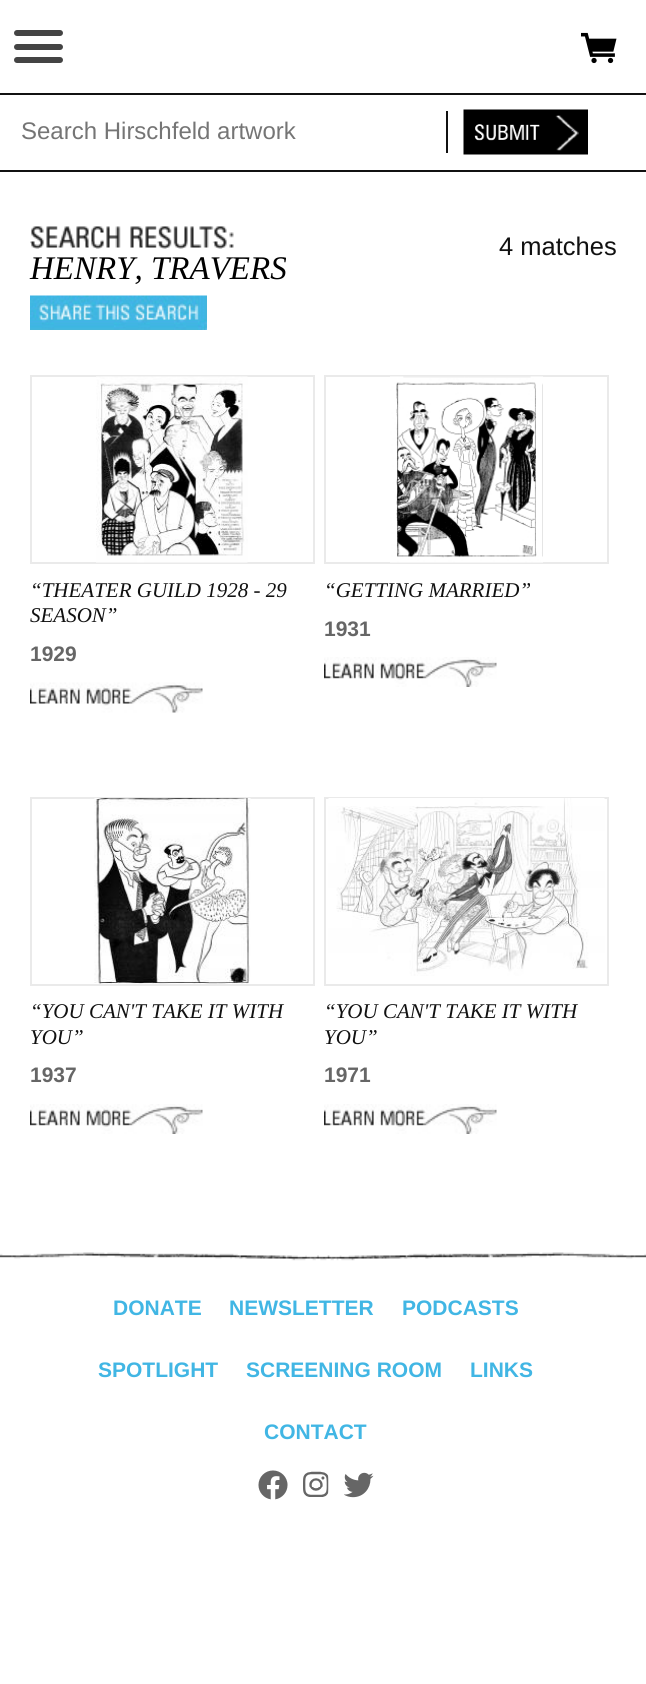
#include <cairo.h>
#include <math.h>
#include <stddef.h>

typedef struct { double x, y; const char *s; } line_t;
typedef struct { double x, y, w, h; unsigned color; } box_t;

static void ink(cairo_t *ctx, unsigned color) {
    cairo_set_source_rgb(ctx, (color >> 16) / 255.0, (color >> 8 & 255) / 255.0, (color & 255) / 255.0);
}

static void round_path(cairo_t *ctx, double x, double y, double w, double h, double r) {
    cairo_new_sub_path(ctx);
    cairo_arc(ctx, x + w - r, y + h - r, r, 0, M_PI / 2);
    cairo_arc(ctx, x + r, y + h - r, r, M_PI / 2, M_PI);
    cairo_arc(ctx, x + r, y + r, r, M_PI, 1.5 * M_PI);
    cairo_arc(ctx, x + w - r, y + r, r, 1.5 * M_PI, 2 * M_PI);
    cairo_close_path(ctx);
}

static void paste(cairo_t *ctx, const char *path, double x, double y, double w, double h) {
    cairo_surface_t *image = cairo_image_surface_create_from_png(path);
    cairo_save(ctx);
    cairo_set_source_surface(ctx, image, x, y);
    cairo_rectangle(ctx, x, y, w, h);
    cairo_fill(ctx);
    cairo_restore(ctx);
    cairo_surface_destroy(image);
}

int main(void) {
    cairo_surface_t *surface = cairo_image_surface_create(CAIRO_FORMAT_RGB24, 646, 1684);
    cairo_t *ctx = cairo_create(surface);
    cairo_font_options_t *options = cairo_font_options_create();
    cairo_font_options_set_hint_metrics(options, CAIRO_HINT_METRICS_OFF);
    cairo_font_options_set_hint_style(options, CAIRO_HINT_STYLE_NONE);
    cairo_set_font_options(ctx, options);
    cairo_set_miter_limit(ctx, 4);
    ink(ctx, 0xFFFFFF);
    cairo_paint(ctx);
    ink(ctx, 0x444444);
    round_path(ctx, 14, 30, 49, 6, 3);
    cairo_fill(ctx);
    round_path(ctx, 14, 44, 49, 6, 3);
    cairo_fill(ctx);
    round_path(ctx, 14, 57, 49, 6, 3);
    cairo_fill(ctx);
    paste(ctx, "media/1.png", 581, 32, 36, 32);
    {
        static const box_t items[] = {
            {0, 93, 646, 2, 0x111111},
            {0, 170, 646, 2, 0x111111},
            {446, 111, 2, 42, 0x111111},
        };
        for (size_t i = 0; i < sizeof items / sizeof *items; i++) {
            ink(ctx, items[i].color);
            cairo_rectangle(ctx, items[i].x, items[i].y, items[i].w, items[i].h);
            cairo_fill(ctx);
        }
    }
    cairo_select_font_face(ctx, "Liberation Sans", CAIRO_FONT_SLANT_NORMAL, CAIRO_FONT_WEIGHT_NORMAL);
    cairo_set_font_size(ctx, 24);
    ink(ctx, 0x757575);
    cairo_move_to(ctx, 21, 139);
    cairo_show_text(ctx, "Search Hirschfeld artwork");
    paste(ctx, "media/2.png", 463, 109, 125, 46);
    cairo_set_font_size(ctx, 25.5);
    ink(ctx, 0x111111);
    cairo_move_to(ctx, 499, 255);
    cairo_show_text(ctx, "4 matches");
    paste(ctx, "media/3.png", 30, 226, 204, 23);
    cairo_select_font_face(ctx, "Liberation Serif", CAIRO_FONT_SLANT_ITALIC, CAIRO_FONT_WEIGHT_NORMAL);
    cairo_set_font_size(ctx, 33);
    ink(ctx, 0x000000);
    cairo_move_to(ctx, 30, 279);
    cairo_show_text(ctx, "HENRY, TRAVERS");
    paste(ctx, "media/4.png", 30, 295, 177, 35);
    cairo_rectangle(ctx, 31, 376, 283, 187);
    ink(ctx, 0xEAEAEA);
    cairo_stroke(ctx);
    paste(ctx, "media/5.png", 96, 376, 152, 187);
    cairo_set_font_size(ctx, 21);
    ink(ctx, 0x111111);
    cairo_move_to(ctx, 30, 597);
    cairo_show_text(ctx, "“THEATER GUILD 1928 - 29");
    cairo_move_to(ctx, 30, 622);
    cairo_show_text(ctx, "SEASON”");
    cairo_select_font_face(ctx, "Liberation Sans", CAIRO_FONT_SLANT_NORMAL, CAIRO_FONT_WEIGHT_BOLD);
    ink(ctx, 0x666666);
    cairo_move_to(ctx, 30, 661);
    cairo_show_text(ctx, "1929");
    paste(ctx, "media/6.png", 30, 682, 173, 31);
    cairo_rectangle(ctx, 325, 376, 283, 187);
    ink(ctx, 0xEAEAEA);
    cairo_stroke(ctx);
    paste(ctx, "media/7.png", 390, 376, 153, 187);
    cairo_select_font_face(ctx, "Liberation Serif", CAIRO_FONT_SLANT_ITALIC, CAIRO_FONT_WEIGHT_NORMAL);
    ink(ctx, 0x111111);
    cairo_move_to(ctx, 324, 597);
    cairo_show_text(ctx, "“GETTING MARRIED”");
    cairo_select_font_face(ctx, "Liberation Sans", CAIRO_FONT_SLANT_NORMAL, CAIRO_FONT_WEIGHT_BOLD);
    ink(ctx, 0x666666);
    cairo_move_to(ctx, 324, 636);
    cairo_show_text(ctx, "1931");
    paste(ctx, "media/8.png", 324, 657, 173, 30);
    cairo_rectangle(ctx, 31, 798, 283, 187);
    ink(ctx, 0xEAEAEA);
    cairo_stroke(ctx);
    paste(ctx, "media/9.png", 94, 798, 157, 186);
    cairo_select_font_face(ctx, "Liberation Serif", CAIRO_FONT_SLANT_ITALIC, CAIRO_FONT_WEIGHT_NORMAL);
    ink(ctx, 0x111111);
    cairo_move_to(ctx, 30, 1018);
    cairo_show_text(ctx, "“YOU CAN'T TAKE IT WITH");
    cairo_move_to(ctx, 30, 1044);
    cairo_show_text(ctx, "YOU”");
    cairo_select_font_face(ctx, "Liberation Sans", CAIRO_FONT_SLANT_NORMAL, CAIRO_FONT_WEIGHT_BOLD);
    ink(ctx, 0x666666);
    cairo_move_to(ctx, 30, 1082);
    cairo_show_text(ctx, "1937");
    paste(ctx, "media/10.png", 30, 1104, 173, 30);
    cairo_rectangle(ctx, 325, 798, 283, 187);
    ink(ctx, 0xEAEAEA);
    cairo_stroke(ctx);
    paste(ctx, "media/11.png", 328, 798, 277, 178);
    cairo_select_font_face(ctx, "Liberation Serif", CAIRO_FONT_SLANT_ITALIC, CAIRO_FONT_WEIGHT_NORMAL);
    ink(ctx, 0x111111);
    cairo_move_to(ctx, 324, 1018);
    cairo_show_text(ctx, "“YOU CAN'T TAKE IT WITH");
    cairo_move_to(ctx, 324, 1044);
    cairo_show_text(ctx, "YOU”");
    cairo_select_font_face(ctx, "Liberation Sans", CAIRO_FONT_SLANT_NORMAL, CAIRO_FONT_WEIGHT_BOLD);
    ink(ctx, 0x666666);
    cairo_move_to(ctx, 324, 1082);
    cairo_show_text(ctx, "1971");
    paste(ctx, "media/8.png", 324, 1104, 173, 30);
    paste(ctx, "media/12.png", 0, 1252, 646, 9);
    ink(ctx, 0x41B6E4);
    {
        static const line_t items[] = {
            {113, 1315, "DONATE"},
            {229, 1315, "NEWSLETTER"},
            {402, 1315, "PODCASTS"},
            {98, 1377, "SPOTLIGHT"},
            {246, 1377, "SCREENING ROOM"},
            {470, 1377, "LINKS"},
            {264, 1439, "CONTACT"},
        };
        for (size_t i = 0; i < sizeof items / sizeof *items; i++) {
            cairo_move_to(ctx, items[i].x, items[i].y);
            cairo_show_text(ctx, items[i].s);
        }
    }
    paste(ctx, "media/13.png", 258, 1470, 30, 30);
    paste(ctx, "media/14.png", 303, 1471, 26, 26);
    paste(ctx, "media/15.png", 344, 1472, 30, 26);
    cairo_surface_write_to_png(surface, "image.png");
    cairo_font_options_destroy(options);
    cairo_destroy(ctx);
    cairo_surface_destroy(surface);
    return 0;
}
